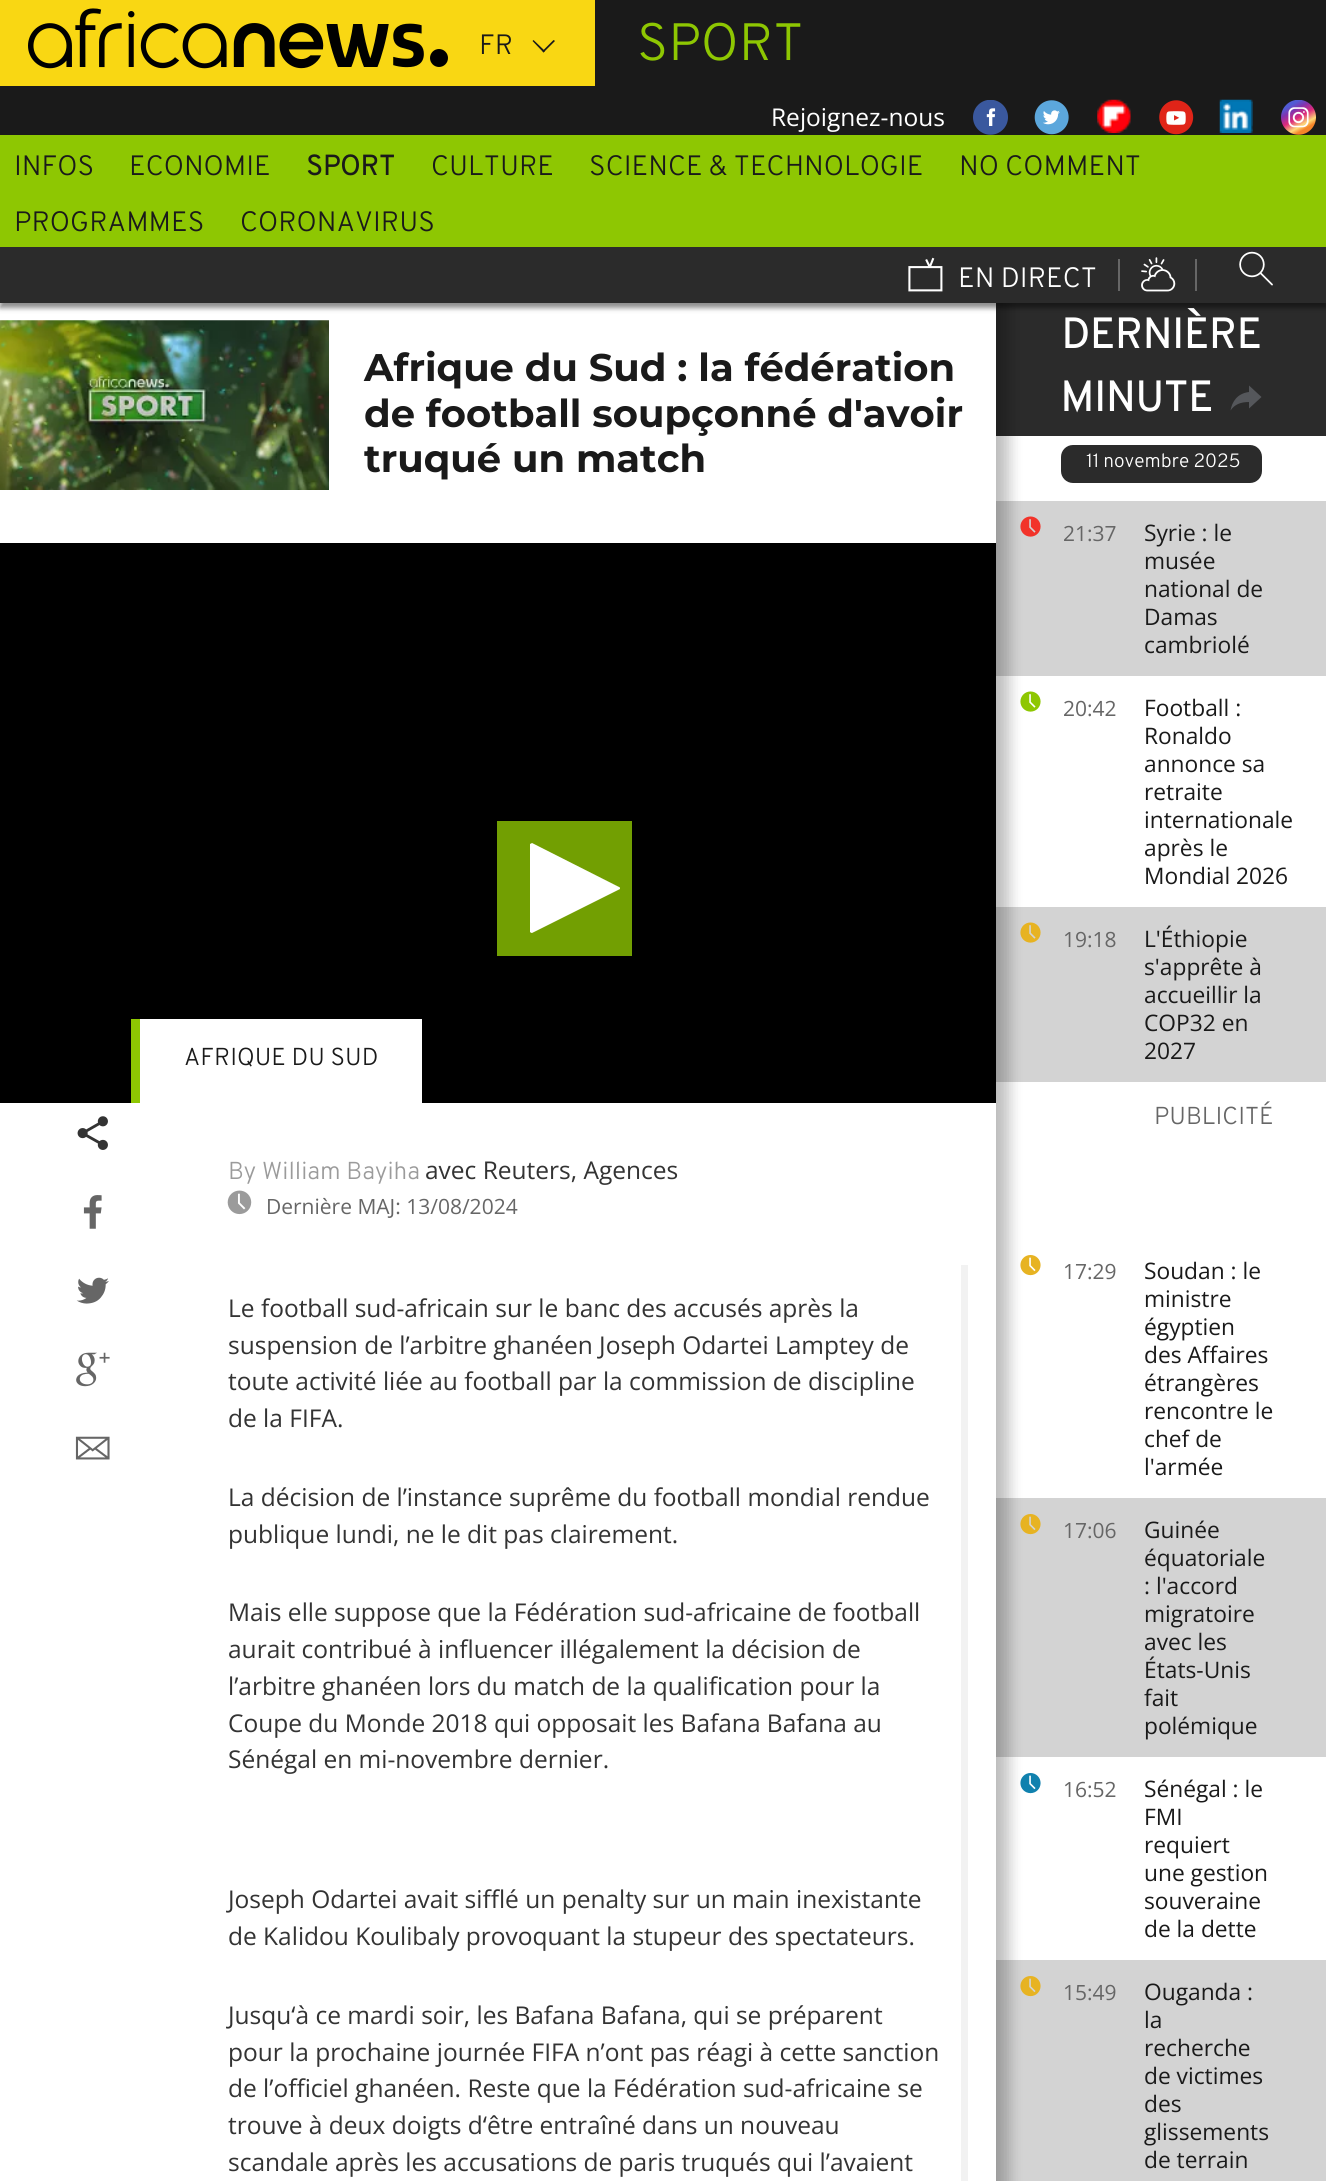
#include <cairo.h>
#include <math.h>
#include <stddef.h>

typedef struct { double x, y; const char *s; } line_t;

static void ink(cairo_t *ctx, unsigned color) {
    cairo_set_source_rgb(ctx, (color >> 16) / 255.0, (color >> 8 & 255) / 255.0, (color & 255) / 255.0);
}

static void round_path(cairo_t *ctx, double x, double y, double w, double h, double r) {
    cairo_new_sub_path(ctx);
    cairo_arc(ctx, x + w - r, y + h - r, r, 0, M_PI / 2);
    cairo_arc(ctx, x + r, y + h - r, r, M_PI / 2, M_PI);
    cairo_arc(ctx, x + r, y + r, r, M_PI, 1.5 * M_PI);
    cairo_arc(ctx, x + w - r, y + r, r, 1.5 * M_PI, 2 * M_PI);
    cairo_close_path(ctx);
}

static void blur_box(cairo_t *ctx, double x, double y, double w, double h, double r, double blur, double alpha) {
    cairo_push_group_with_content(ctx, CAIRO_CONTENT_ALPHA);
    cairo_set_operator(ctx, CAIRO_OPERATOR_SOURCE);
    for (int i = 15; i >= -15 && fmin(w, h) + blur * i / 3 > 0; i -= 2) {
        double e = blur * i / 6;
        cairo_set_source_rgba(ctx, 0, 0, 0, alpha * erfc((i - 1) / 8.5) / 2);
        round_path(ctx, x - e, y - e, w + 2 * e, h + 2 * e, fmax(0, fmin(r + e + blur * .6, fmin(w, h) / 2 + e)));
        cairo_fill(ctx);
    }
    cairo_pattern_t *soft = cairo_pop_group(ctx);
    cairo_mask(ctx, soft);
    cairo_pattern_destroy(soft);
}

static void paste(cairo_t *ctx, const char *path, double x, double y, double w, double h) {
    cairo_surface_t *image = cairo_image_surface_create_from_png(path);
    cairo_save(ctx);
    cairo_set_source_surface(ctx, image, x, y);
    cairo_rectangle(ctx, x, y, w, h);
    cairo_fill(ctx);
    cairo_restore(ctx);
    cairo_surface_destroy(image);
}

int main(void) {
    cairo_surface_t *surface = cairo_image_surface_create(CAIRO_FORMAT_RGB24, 1326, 2181);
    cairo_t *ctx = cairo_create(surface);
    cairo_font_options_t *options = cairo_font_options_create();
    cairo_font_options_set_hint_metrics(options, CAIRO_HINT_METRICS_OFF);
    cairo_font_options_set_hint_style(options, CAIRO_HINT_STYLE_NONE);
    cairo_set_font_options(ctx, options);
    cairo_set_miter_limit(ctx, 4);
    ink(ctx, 0xFFFFFF);
    cairo_paint(ctx);
    ink(ctx, 0x1A1A1A);
    cairo_rectangle(ctx, 0, 0, 1326, 135);
    cairo_fill(ctx);
    ink(ctx, 0xF9D713);
    cairo_rectangle(ctx, 0, 0, 595, 86);
    cairo_fill(ctx);
    paste(ctx, "media/1.png", 28, 8, 420, 61);
    cairo_select_font_face(ctx, "Overpass Light", CAIRO_FONT_SLANT_NORMAL, CAIRO_FONT_WEIGHT_NORMAL);
    cairo_set_font_size(ctx, 28);
    ink(ctx, 0x1A1A1A);
    cairo_move_to(ctx, 479, 54);
    cairo_show_text(ctx, "FR");
    cairo_new_path(ctx);
    cairo_move_to(ctx, 542.5, 51);
    cairo_line_to(ctx, 553.5, 40);
    cairo_line_to(ctx, 555, 41);
    cairo_line_to(ctx, 543.5, 52.5);
    cairo_close_path(ctx);
    cairo_fill(ctx);
    cairo_new_path(ctx);
    cairo_move_to(ctx, 532.5, 41);
    cairo_line_to(ctx, 533.5, 40);
    cairo_line_to(ctx, 545, 51);
    cairo_line_to(ctx, 543.5, 52.5);
    cairo_close_path(ctx);
    cairo_fill(ctx);
    cairo_set_font_size(ctx, 52.5);
    ink(ctx, 0x8EC702);
    cairo_move_to(ctx, 637, 60);
    cairo_show_text(ctx, "SPORT");
    cairo_select_font_face(ctx, "Open Sans", CAIRO_FONT_SLANT_NORMAL, CAIRO_FONT_WEIGHT_NORMAL);
    cairo_set_font_size(ctx, 24.5);
    ink(ctx, 0xFFFFFF);
    cairo_move_to(ctx, 771, 126);
    cairo_show_text(ctx, "Rejoignez-nous");
    paste(ctx, "media/4.png", 1097, 99, 34, 34);
    paste(ctx, "media/6.png", 1219, 99, 34, 34);
    ink(ctx, 0x2B2B2B);
    cairo_rectangle(ctx, 996, 303, 330, 133);
    cairo_fill(ctx);
    ink(ctx, 0xD3D3D3);
    cairo_rectangle(ctx, 996, 501, 330, 175);
    cairo_fill(ctx);
    paste(ctx, "media/18.png", 1020, 516, 21, 21);
    paste(ctx, "media/19.png", 1020, 691, 21, 21);
    cairo_rectangle(ctx, 996, 907, 330, 175);
    cairo_fill(ctx);
    paste(ctx, "media/20.png", 1020, 922, 21, 21);
    paste(ctx, "media/21.png", 1020, 1255, 21, 21);
    cairo_rectangle(ctx, 996, 1498, 330, 259);
    cairo_fill(ctx);
    paste(ctx, "media/22.png", 1020, 1514, 21, 21);
    paste(ctx, "media/23.png", 1020, 1773, 21, 21);
    cairo_rectangle(ctx, 996, 1960, 330, 221);
    cairo_fill(ctx);
    paste(ctx, "media/22.png", 1020, 1976, 21, 21);
    ink(ctx, 0x000000);
    blur_box(ctx, 49, 299, 961, 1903, 0, 7, 0.15);
    blur_box(ctx, 9, 299, 996, 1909, 0, 9, 0.15);
    ink(ctx, 0xFFFFFF);
    cairo_rectangle(ctx, 0, 303, 996, 1878);
    cairo_fill(ctx);
    ink(ctx, 0x000000);
    blur_box(ctx, 0, 140, 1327, 168, 0, 2.5, 0.45);
    paste(ctx, "media/2.png", 973, 100, 35, 35);
    paste(ctx, "media/3.png", 1034, 100, 35, 35);
    paste(ctx, "media/5.png", 1159, 100, 35, 35);
    paste(ctx, "media/7.png", 1281, 100, 35, 35);
    ink(ctx, 0x8EC702);
    cairo_rectangle(ctx, 0, 135, 1326, 112);
    cairo_fill(ctx);
    cairo_select_font_face(ctx, "Overpass Light", CAIRO_FONT_SLANT_NORMAL, CAIRO_FONT_WEIGHT_NORMAL);
    cairo_set_font_size(ctx, 28);
    ink(ctx, 0x1A1A1A);
    cairo_move_to(ctx, 14, 175);
    cairo_show_text(ctx, "INFOS");
    cairo_move_to(ctx, 129, 175);
    cairo_show_text(ctx, "ECONOMIE");
    cairo_select_font_face(ctx, "Overpass", CAIRO_FONT_SLANT_NORMAL, CAIRO_FONT_WEIGHT_BOLD);
    cairo_move_to(ctx, 306, 175);
    cairo_show_text(ctx, "SPORT");
    cairo_select_font_face(ctx, "Overpass Light", CAIRO_FONT_SLANT_NORMAL, CAIRO_FONT_WEIGHT_NORMAL);
    {
        static const line_t items[] = {
            {431, 175, "CULTURE"},
            {589, 175, "SCIENCE & TECHNOLOGIE"},
            {959, 175, "NO COMMENT"},
            {14, 231, "PROGRAMMES"},
            {240, 231, "CORONAVIRUS"},
        };
        for (size_t i = 0; i < sizeof items / sizeof *items; i++) {
            cairo_move_to(ctx, items[i].x, items[i].y);
            cairo_show_text(ctx, items[i].s);
        }
    }
    ink(ctx, 0x2B2B2B);
    cairo_rectangle(ctx, 0, 247, 1326, 56);
    cairo_fill(ctx);
    paste(ctx, "media/8.png", 908, 257, 35, 35);
    ink(ctx, 0xFFFFFF);
    cairo_move_to(ctx, 958, 287);
    cairo_show_text(ctx, "EN DIRECT");
    ink(ctx, 0x666666);
    cairo_rectangle(ctx, 1118, 259, 2, 32);
    cairo_fill(ctx);
    paste(ctx, "media/9.png", 1141, 257, 35, 35);
    cairo_rectangle(ctx, 1195, 259, 2, 32);
    cairo_fill(ctx);
    paste(ctx, "media/10.png", 1239, 251, 34, 35);
    paste(ctx, "media/11.png", 0, 320, 329, 170);
    cairo_select_font_face(ctx, "Montserrat Thin", CAIRO_FONT_SLANT_NORMAL, CAIRO_FONT_WEIGHT_NORMAL);
    cairo_set_font_size(ctx, 38.5);
    ink(ctx, 0x1A1A1A);
    {
        static const line_t items[] = {
            {364, 381, "Afrique du Sud : la fédération"},
            {364, 427, "de football soupçonné d'avoir"},
            {364, 472, "truqué un match"},
        };
        for (size_t i = 0; i < sizeof items / sizeof *items; i++) {
            cairo_move_to(ctx, items[i].x, items[i].y);
            cairo_show_text(ctx, items[i].s);
        }
    }
    ink(ctx, 0x000000);
    cairo_rectangle(ctx, 0, 543, 996, 560);
    cairo_fill(ctx);
    ink(ctx, 0x729F02);
    cairo_rectangle(ctx, 497, 821, 135, 135);
    cairo_fill(ctx);
    ink(ctx, 0xFFFFFF);
    cairo_new_path(ctx);
    cairo_move_to(ctx, 532, 933);
    cairo_curve_to(ctx, 532, 933, 531, 933, 530, 932);
    cairo_line_to(ctx, 530, 844);
    cairo_line_to(ctx, 532, 843);
    cairo_line_to(ctx, 619, 887);
    cairo_curve_to(ctx, 620, 887, 620, 888, 620, 889);
    cairo_close_path(ctx);
    cairo_fill(ctx);
    paste(ctx, "media/12.png", 77, 1116, 31, 34);
    paste(ctx, "media/13.png", 83, 1195, 19, 34);
    paste(ctx, "media/14.png", 76, 1277, 33, 27);
    paste(ctx, "media/15.png", 76, 1352, 34, 35);
    paste(ctx, "media/16.png", 75, 1436, 35, 24);
    cairo_rectangle(ctx, 140, 1019, 282, 84);
    cairo_fill(ctx);
    ink(ctx, 0x8EC702);
    cairo_rectangle(ctx, 131, 1019, 9, 84);
    cairo_fill(ctx);
    cairo_select_font_face(ctx, "Overpass Light", CAIRO_FONT_SLANT_NORMAL, CAIRO_FONT_WEIGHT_NORMAL);
    cairo_set_font_size(ctx, 24.5);
    ink(ctx, 0x1A1A1A);
    cairo_move_to(ctx, 184, 1065);
    cairo_show_text(ctx, "AFRIQUE DU SUD");
    ink(ctx, 0xF2F2F2);
    cairo_new_path(ctx);
    cairo_move_to(ctx, 235, 1265);
    cairo_line_to(ctx, 961, 1265);
    cairo_line_to(ctx, 961, 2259);
    cairo_line_to(ctx, 968, 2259);
    cairo_line_to(ctx, 968, 1265);
    cairo_close_path(ctx);
    cairo_fill(ctx);
    cairo_select_font_face(ctx, "Open Sans", CAIRO_FONT_SLANT_NORMAL, CAIRO_FONT_WEIGHT_NORMAL);
    ink(ctx, 0x333333);
    {
        static const line_t items[] = {
            {228, 1317, "Le football sud-africain sur le banc des accusés après la"},
            {228, 1354, "suspension de l’arbitre ghanéen Joseph Odartei Lamptey de"},
            {228, 1390, "toute activité liée au football par la commission de discipline"},
            {228, 1427, "de la FIFA."},
            {228, 1506, "La décision de l’instance suprême du football mondial rendue"},
            {228, 1543, "publique lundi, ne le dit pas clairement."},
            {228, 1621, "Mais elle suppose que la Fédération sud-africaine de football"},
            {228, 1658, "aurait contribué à influencer illégalement la décision de"},
            {228, 1695, "l’arbitre ghanéen lors du match de la qualification pour la"},
            {228, 1732, "Coupe du Monde 2018 qui opposait les Bafana Bafana au"},
            {228, 1768, "Sénégal en mi-novembre dernier."},
            {228, 1908, "Joseph Odartei avait sifflé un penalty sur un main inexistante"},
            {228, 1945, "de Kalidou Koulibaly provoquant la stupeur des spectateurs."},
            {228, 2024, "Jusqu‘à ce mardi soir, les Bafana Bafana, qui se préparent"},
            {228, 2061, "pour la prochaine journée FIFA n’ont pas réagi à cette sanction"},
            {228, 2097, "de l’officiel ghanéen. Reste que la Fédération sud-africaine se"},
            {228, 2134, "trouve à deux doigts d‘être entraîné dans un nouveau"},
            {228, 2171, "scandale après les accusations de paris truqués qui l’avaient"},
        };
        for (size_t i = 0; i < sizeof items / sizeof *items; i++) {
            cairo_move_to(ctx, items[i].x, items[i].y);
            cairo_show_text(ctx, items[i].s);
        }
    }
    cairo_select_font_face(ctx, "Overpass Light", CAIRO_FONT_SLANT_NORMAL, CAIRO_FONT_WEIGHT_NORMAL);
    ink(ctx, 0x9B9B9B);
    cairo_move_to(ctx, 228, 1179);
    cairo_show_text(ctx, "By William Bayiha");
    cairo_select_font_face(ctx, "Open Sans", CAIRO_FONT_SLANT_NORMAL, CAIRO_FONT_WEIGHT_NORMAL);
    ink(ctx, 0x333333);
    cairo_move_to(ctx, 425, 1179);
    cairo_show_text(ctx, "avec Reuters, Agences");
    paste(ctx, "media/17.png", 227, 1190, 25, 25);
    cairo_set_font_size(ctx, 21);
    ink(ctx, 0x666666);
    cairo_move_to(ctx, 266, 1214);
    cairo_show_text(ctx, "Dernière MAJ: 13/08/2024");
    cairo_select_font_face(ctx, "Overpass", CAIRO_FONT_SLANT_NORMAL, CAIRO_FONT_WEIGHT_BOLD);
    cairo_set_font_size(ctx, 42);
    ink(ctx, 0xFFFFFF);
    cairo_move_to(ctx, 1061, 348);
    cairo_show_text(ctx, "DERNIÈRE");
    cairo_move_to(ctx, 1060, 411);
    cairo_show_text(ctx, "MINUTE");
    ink(ctx, 0x55575B);
    cairo_new_path(ctx);
    cairo_move_to(ctx, 1261.5, 397);
    cairo_line_to(ctx, 1249, 408.5);
    cairo_line_to(ctx, 1249, 402);
    cairo_curve_to(ctx, 1240.5, 402, 1234.5, 404.5, 1230.5, 410.5);
    cairo_curve_to(ctx, 1232, 402, 1237, 393.5, 1249, 392);
    cairo_line_to(ctx, 1249, 385.5);
    cairo_close_path(ctx);
    cairo_fill(ctx);
    ink(ctx, 0x2B2B2B);
    round_path(ctx, 1061, 445, 201, 38, 12);
    cairo_fill(ctx);
    cairo_select_font_face(ctx, "Overpass Light", CAIRO_FONT_SLANT_NORMAL, CAIRO_FONT_WEIGHT_NORMAL);
    cairo_set_font_size(ctx, 19.25);
    ink(ctx, 0xFFFFFF);
    cairo_move_to(ctx, 1086, 467);
    cairo_show_text(ctx, "11 novembre 2025");
    cairo_select_font_face(ctx, "Open Sans", CAIRO_FONT_SLANT_NORMAL, CAIRO_FONT_WEIGHT_NORMAL);
    cairo_set_font_size(ctx, 21);
    ink(ctx, 0x666666);
    cairo_move_to(ctx, 1063, 541);
    cairo_show_text(ctx, "21:37");
    cairo_set_font_size(ctx, 22.75);
    ink(ctx, 0x1A1A1A);
    {
        static const line_t items[] = {
            {1144, 541, "Syrie : le"},
            {1144, 569, "musée"},
            {1144, 597, "national de"},
            {1144, 625, "Damas"},
            {1144, 653, "cambriolé"},
        };
        for (size_t i = 0; i < sizeof items / sizeof *items; i++) {
            cairo_move_to(ctx, items[i].x, items[i].y);
            cairo_show_text(ctx, items[i].s);
        }
    }
    cairo_set_font_size(ctx, 21);
    ink(ctx, 0x666666);
    cairo_move_to(ctx, 1063, 716);
    cairo_show_text(ctx, "20:42");
    cairo_set_font_size(ctx, 22.75);
    ink(ctx, 0x1A1A1A);
    {
        static const line_t items[] = {
            {1144, 716, "Football :"},
            {1144, 744, "Ronaldo"},
            {1144, 772, "annonce sa"},
            {1144, 800, "retraite"},
            {1144, 828, "internationale"},
            {1144, 856, "après le"},
            {1144, 884, "Mondial 2026"},
        };
        for (size_t i = 0; i < sizeof items / sizeof *items; i++) {
            cairo_move_to(ctx, items[i].x, items[i].y);
            cairo_show_text(ctx, items[i].s);
        }
    }
    cairo_set_font_size(ctx, 21);
    ink(ctx, 0x666666);
    cairo_move_to(ctx, 1063, 947);
    cairo_show_text(ctx, "19:18");
    cairo_set_font_size(ctx, 22.75);
    ink(ctx, 0x1A1A1A);
    {
        static const line_t items[] = {
            {1144, 947, "L'Éthiopie"},
            {1144, 975, "s'apprête à"},
            {1144, 1003, "accueillir la"},
            {1144, 1031, "COP32 en"},
            {1144, 1059, "2027"},
        };
        for (size_t i = 0; i < sizeof items / sizeof *items; i++) {
            cairo_move_to(ctx, items[i].x, items[i].y);
            cairo_show_text(ctx, items[i].s);
        }
    }
    cairo_select_font_face(ctx, "Overpass Light", CAIRO_FONT_SLANT_NORMAL, CAIRO_FONT_WEIGHT_NORMAL);
    cairo_set_font_size(ctx, 24.5);
    ink(ctx, 0x666666);
    cairo_move_to(ctx, 1154, 1124);
    cairo_show_text(ctx, "PUBLICITÉ");
    cairo_select_font_face(ctx, "Open Sans", CAIRO_FONT_SLANT_NORMAL, CAIRO_FONT_WEIGHT_NORMAL);
    cairo_set_font_size(ctx, 21);
    cairo_move_to(ctx, 1063, 1279);
    cairo_show_text(ctx, "17:29");
    cairo_set_font_size(ctx, 22.75);
    ink(ctx, 0x1A1A1A);
    {
        static const line_t items[] = {
            {1144, 1279, "Soudan : le"},
            {1144, 1307, "ministre"},
            {1144, 1335, "égyptien"},
            {1144, 1363, "des Affaires"},
            {1144, 1391, "étrangères"},
            {1144, 1419, "rencontre le"},
            {1144, 1447, "chef de"},
            {1144, 1475, "l'armée"},
        };
        for (size_t i = 0; i < sizeof items / sizeof *items; i++) {
            cairo_move_to(ctx, items[i].x, items[i].y);
            cairo_show_text(ctx, items[i].s);
        }
    }
    cairo_set_font_size(ctx, 21);
    ink(ctx, 0x666666);
    cairo_move_to(ctx, 1063, 1538);
    cairo_show_text(ctx, "17:06");
    cairo_set_font_size(ctx, 22.75);
    ink(ctx, 0x1A1A1A);
    {
        static const line_t items[] = {
            {1144, 1538, "Guinée"},
            {1144, 1566, "équatoriale"},
            {1144, 1594, ": l'accord"},
            {1144, 1622, "migratoire"},
            {1144, 1650, "avec les"},
            {1144, 1678, "États-Unis"},
            {1144, 1706, "fait"},
            {1144, 1734, "polémique"},
        };
        for (size_t i = 0; i < sizeof items / sizeof *items; i++) {
            cairo_move_to(ctx, items[i].x, items[i].y);
            cairo_show_text(ctx, items[i].s);
        }
    }
    cairo_set_font_size(ctx, 21);
    ink(ctx, 0x666666);
    cairo_move_to(ctx, 1063, 1797);
    cairo_show_text(ctx, "16:52");
    cairo_set_font_size(ctx, 22.75);
    ink(ctx, 0x1A1A1A);
    {
        static const line_t items[] = {
            {1144, 1797, "Sénégal : le"},
            {1144, 1825, "FMI"},
            {1144, 1853, "requiert"},
            {1144, 1881, "une gestion"},
            {1144, 1909, "souveraine"},
            {1144, 1937, "de la dette"},
        };
        for (size_t i = 0; i < sizeof items / sizeof *items; i++) {
            cairo_move_to(ctx, items[i].x, items[i].y);
            cairo_show_text(ctx, items[i].s);
        }
    }
    cairo_set_font_size(ctx, 21);
    ink(ctx, 0x666666);
    cairo_move_to(ctx, 1063, 2000);
    cairo_show_text(ctx, "15:49");
    cairo_set_font_size(ctx, 22.75);
    ink(ctx, 0x1A1A1A);
    {
        static const line_t items[] = {
            {1144, 2000, "Ouganda :"},
            {1144, 2028, "la"},
            {1144, 2056, "recherche"},
            {1144, 2084, "de victimes"},
            {1144, 2112, "des"},
            {1144, 2140, "glissements"},
            {1144, 2168, "de terrain"},
        };
        for (size_t i = 0; i < sizeof items / sizeof *items; i++) {
            cairo_move_to(ctx, items[i].x, items[i].y);
            cairo_show_text(ctx, items[i].s);
        }
    }
    cairo_surface_write_to_png(surface, "image.png");
    cairo_font_options_destroy(options);
    cairo_destroy(ctx);
    cairo_surface_destroy(surface);
    return 0;
}
